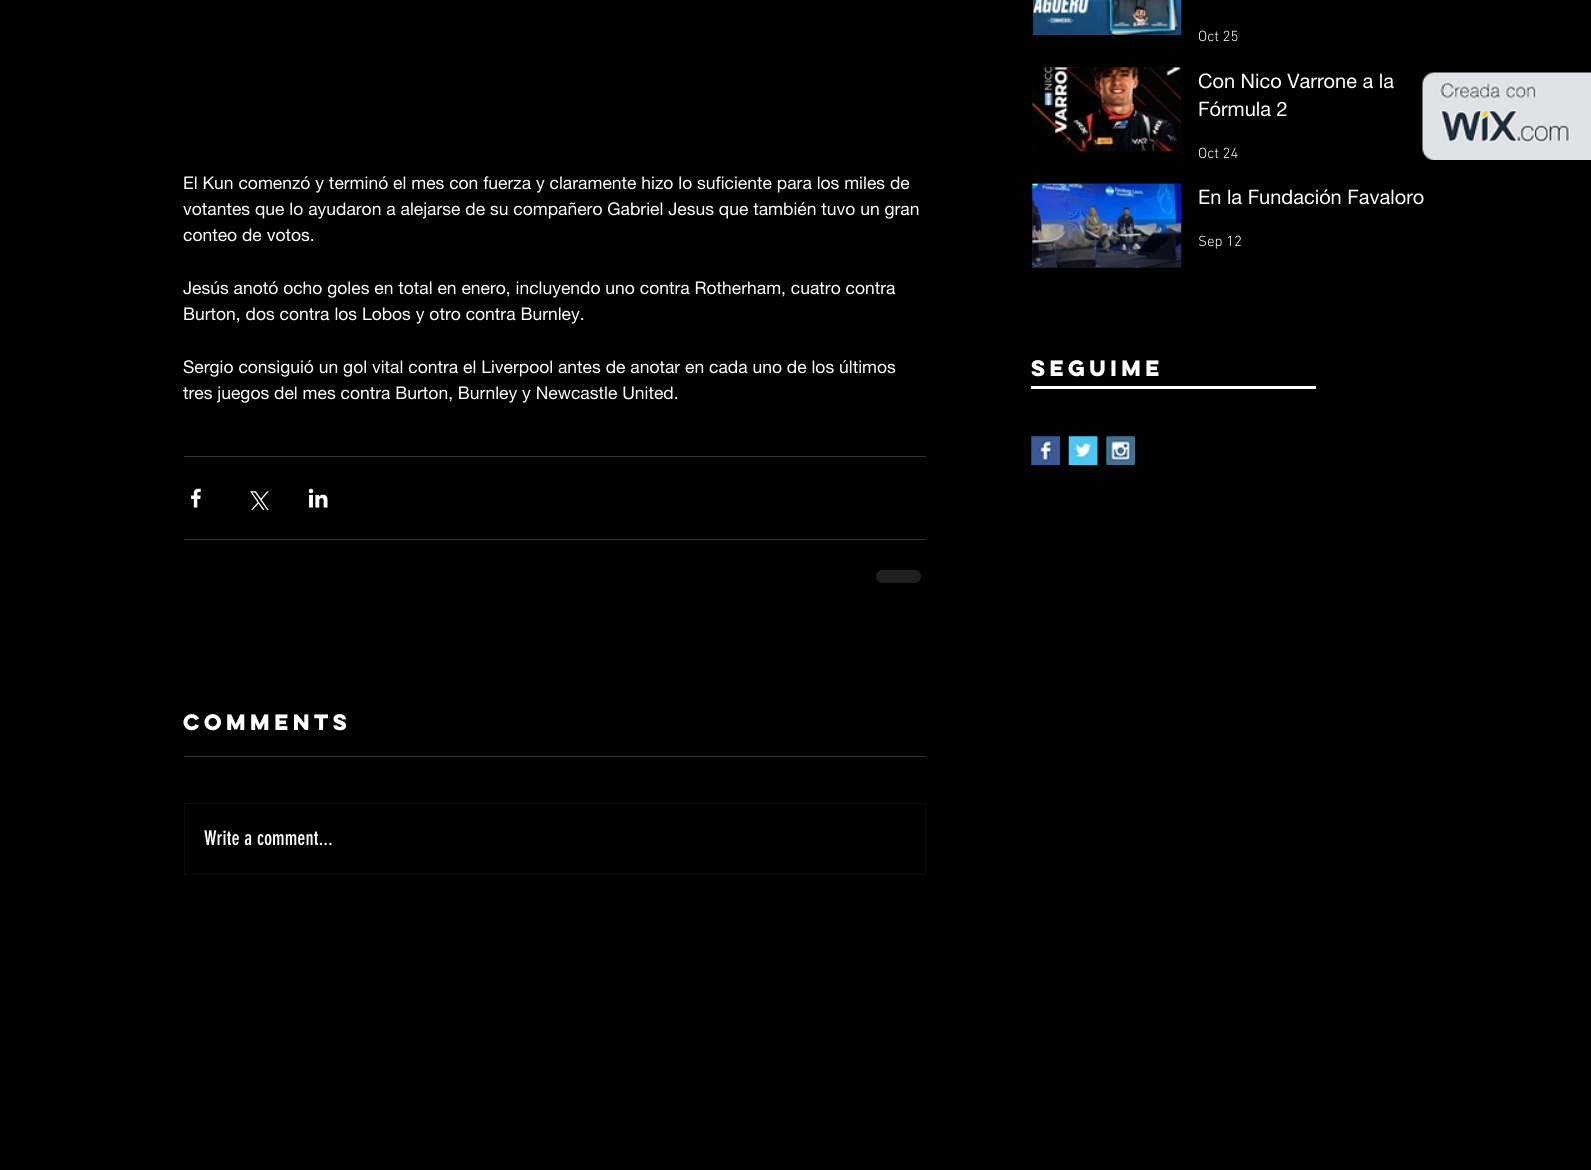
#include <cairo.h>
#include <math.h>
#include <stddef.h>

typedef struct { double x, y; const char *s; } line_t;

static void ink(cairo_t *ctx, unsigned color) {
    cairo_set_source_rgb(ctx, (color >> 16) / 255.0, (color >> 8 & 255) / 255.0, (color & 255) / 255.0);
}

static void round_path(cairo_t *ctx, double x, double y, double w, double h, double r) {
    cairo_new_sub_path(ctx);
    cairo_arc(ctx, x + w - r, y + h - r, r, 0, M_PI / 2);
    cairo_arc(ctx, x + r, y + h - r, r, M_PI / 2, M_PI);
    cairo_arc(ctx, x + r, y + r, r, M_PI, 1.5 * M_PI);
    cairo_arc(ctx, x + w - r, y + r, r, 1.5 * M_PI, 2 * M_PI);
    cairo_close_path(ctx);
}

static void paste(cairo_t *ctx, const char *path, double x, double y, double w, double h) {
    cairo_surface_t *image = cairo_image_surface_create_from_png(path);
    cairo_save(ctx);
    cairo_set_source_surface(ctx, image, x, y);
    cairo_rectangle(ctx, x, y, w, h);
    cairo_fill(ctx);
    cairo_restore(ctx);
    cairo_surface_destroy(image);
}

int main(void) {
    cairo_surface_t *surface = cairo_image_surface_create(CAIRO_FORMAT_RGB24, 1591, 1170);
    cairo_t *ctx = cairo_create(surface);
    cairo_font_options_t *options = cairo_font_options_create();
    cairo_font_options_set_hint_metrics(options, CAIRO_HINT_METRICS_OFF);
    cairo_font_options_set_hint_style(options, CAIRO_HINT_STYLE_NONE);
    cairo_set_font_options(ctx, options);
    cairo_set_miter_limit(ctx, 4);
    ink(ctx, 0x000000);
    cairo_paint(ctx);
    cairo_select_font_face(ctx, "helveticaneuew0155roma", CAIRO_FONT_SLANT_NORMAL, CAIRO_FONT_WEIGHT_NORMAL);
    cairo_set_font_size(ctx, 17.5);
    ink(ctx, 0xFFFFFF);
    {
        static const line_t items[] = {
            {183, 189, "El Kun comenzó y terminó el mes con fuerza y claramente hizo lo suficiente para los miles de"},
            {183, 215, "votantes que lo ayudaron a alejarse de su compañero Gabriel Jesus que también tuvo un gran"},
            {183, 241, "conteo de votos."},
            {183, 294, "Jesús anotó ocho goles en total en enero, incluyendo uno contra Rotherham, cuatro contra"},
            {183, 320, "Burton, dos contra los Lobos y otro contra Burnley."},
            {183, 373, "Sergio consiguió un gol vital contra el Liverpool antes de anotar en cada uno de los últimos"},
            {183, 399, "tres juegos del mes contra Burton, Burnley y Newcastle United."},
        };
        for (size_t i = 0; i < sizeof items / sizeof *items; i++) {
            cairo_move_to(ctx, items[i].x, items[i].y);
            cairo_show_text(ctx, items[i].s);
        }
    }
    ink(ctx, 0x333333);
    cairo_rectangle(ctx, 184, 456, 742, 1);
    cairo_fill(ctx);
    paste(ctx, "media/1.png", 191, 488, 10, 20);
    paste(ctx, "media/2.png", 250, 491, 19, 19);
    paste(ctx, "media/3.png", 308, 488, 20, 20);
    cairo_rectangle(ctx, 184, 539, 742, 1);
    cairo_fill(ctx);
    ink(ctx, 0x1F1F1F);
    round_path(ctx, 876, 570, 45, 13, 6.5);
    cairo_fill(ctx);
    cairo_select_font_face(ctx, "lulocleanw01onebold", CAIRO_FONT_SLANT_NORMAL, CAIRO_FONT_WEIGHT_BOLD);
    cairo_set_font_size(ctx, 20);
    ink(ctx, 0xFFFFFF);
    cairo_move_to(ctx, 183, 730);
    cairo_show_text(ctx, "Comments");
    ink(ctx, 0x333333);
    cairo_rectangle(ctx, 184, 756, 742, 1);
    cairo_fill(ctx);
    cairo_rectangle(ctx, 184.5, 803.5, 741, 71);
    ink(ctx, 0x070E12);
    cairo_set_line_width(ctx, 1);
    cairo_stroke(ctx);
    cairo_select_font_face(ctx, "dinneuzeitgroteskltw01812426", CAIRO_FONT_SLANT_NORMAL, CAIRO_FONT_WEIGHT_NORMAL);
    ink(ctx, 0xFFFFFF);
    cairo_move_to(ctx, 204, 845);
    cairo_show_text(ctx, "Write a comment...");
    paste(ctx, "media/4.png", 1033, 0, 148, 35);
    paste(ctx, "media/5.png", 1181, 0, 1, 35);
    cairo_select_font_face(ctx, "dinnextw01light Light", CAIRO_FONT_SLANT_NORMAL, CAIRO_FONT_WEIGHT_NORMAL);
    cairo_set_font_size(ctx, 15);
    cairo_move_to(ctx, 1198, 41);
    cairo_show_text(ctx, "Oct 25");
    paste(ctx, "media/6.png", 1032, 67, 149, 85);
    paste(ctx, "media/7.png", 1032, 67, 150, 85);
    cairo_select_font_face(ctx, "helveticaneuew0155roma", CAIRO_FONT_SLANT_NORMAL, CAIRO_FONT_WEIGHT_NORMAL);
    cairo_set_font_size(ctx, 20);
    cairo_move_to(ctx, 1198, 88);
    cairo_show_text(ctx, "Con Nico Varrone a la");
    cairo_move_to(ctx, 1198, 116);
    cairo_show_text(ctx, "Fórmula 2");
    cairo_select_font_face(ctx, "dinnextw01light Light", CAIRO_FONT_SLANT_NORMAL, CAIRO_FONT_WEIGHT_NORMAL);
    cairo_set_font_size(ctx, 15);
    cairo_move_to(ctx, 1198, 158);
    cairo_show_text(ctx, "Oct 24");
    paste(ctx, "media/8.png", 1032, 183, 150, 85);
    paste(ctx, "media/9.png", 1032, 183, 150, 85);
    cairo_select_font_face(ctx, "helveticaneuew0155roma", CAIRO_FONT_SLANT_NORMAL, CAIRO_FONT_WEIGHT_NORMAL);
    cairo_set_font_size(ctx, 20);
    cairo_move_to(ctx, 1198, 204);
    cairo_show_text(ctx, "En la Fundación Favaloro");
    cairo_select_font_face(ctx, "dinnextw01light Light", CAIRO_FONT_SLANT_NORMAL, CAIRO_FONT_WEIGHT_NORMAL);
    cairo_set_font_size(ctx, 15);
    cairo_move_to(ctx, 1198, 246);
    cairo_show_text(ctx, "Sep 12");
    cairo_select_font_face(ctx, "lulocleanw01onebold", CAIRO_FONT_SLANT_NORMAL, CAIRO_FONT_WEIGHT_BOLD);
    cairo_set_font_size(ctx, 20);
    cairo_move_to(ctx, 1031, 376);
    cairo_show_text(ctx, "SEGUIME");
    cairo_rectangle(ctx, 1031, 386, 285, 3);
    cairo_fill(ctx);
    paste(ctx, "media/10.png", 1031, 436, 29, 29);
    paste(ctx, "media/11.png", 1068, 436, 30, 29);
    paste(ctx, "media/12.png", 1106, 436, 29, 29);
    paste(ctx, "media/13.png", 1422, 72, 169, 88);
    cairo_surface_write_to_png(surface, "image.png");
    cairo_font_options_destroy(options);
    cairo_destroy(ctx);
    cairo_surface_destroy(surface);
    return 0;
}
